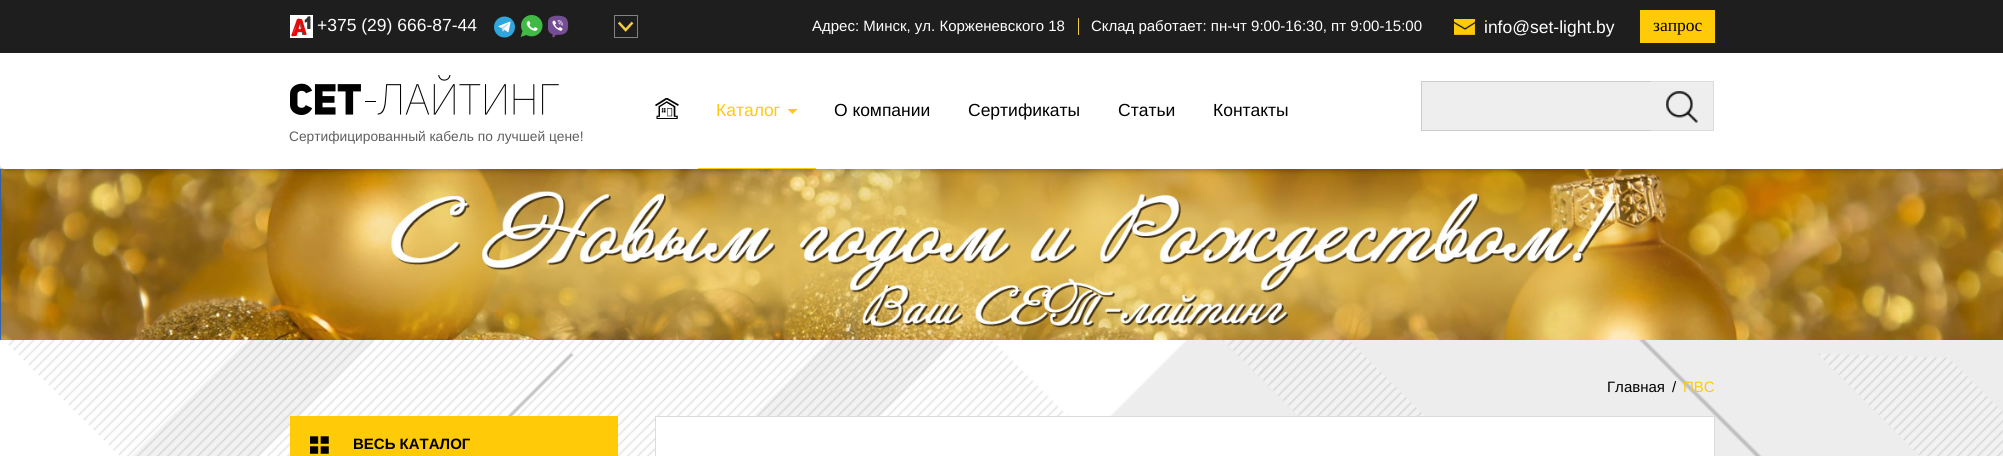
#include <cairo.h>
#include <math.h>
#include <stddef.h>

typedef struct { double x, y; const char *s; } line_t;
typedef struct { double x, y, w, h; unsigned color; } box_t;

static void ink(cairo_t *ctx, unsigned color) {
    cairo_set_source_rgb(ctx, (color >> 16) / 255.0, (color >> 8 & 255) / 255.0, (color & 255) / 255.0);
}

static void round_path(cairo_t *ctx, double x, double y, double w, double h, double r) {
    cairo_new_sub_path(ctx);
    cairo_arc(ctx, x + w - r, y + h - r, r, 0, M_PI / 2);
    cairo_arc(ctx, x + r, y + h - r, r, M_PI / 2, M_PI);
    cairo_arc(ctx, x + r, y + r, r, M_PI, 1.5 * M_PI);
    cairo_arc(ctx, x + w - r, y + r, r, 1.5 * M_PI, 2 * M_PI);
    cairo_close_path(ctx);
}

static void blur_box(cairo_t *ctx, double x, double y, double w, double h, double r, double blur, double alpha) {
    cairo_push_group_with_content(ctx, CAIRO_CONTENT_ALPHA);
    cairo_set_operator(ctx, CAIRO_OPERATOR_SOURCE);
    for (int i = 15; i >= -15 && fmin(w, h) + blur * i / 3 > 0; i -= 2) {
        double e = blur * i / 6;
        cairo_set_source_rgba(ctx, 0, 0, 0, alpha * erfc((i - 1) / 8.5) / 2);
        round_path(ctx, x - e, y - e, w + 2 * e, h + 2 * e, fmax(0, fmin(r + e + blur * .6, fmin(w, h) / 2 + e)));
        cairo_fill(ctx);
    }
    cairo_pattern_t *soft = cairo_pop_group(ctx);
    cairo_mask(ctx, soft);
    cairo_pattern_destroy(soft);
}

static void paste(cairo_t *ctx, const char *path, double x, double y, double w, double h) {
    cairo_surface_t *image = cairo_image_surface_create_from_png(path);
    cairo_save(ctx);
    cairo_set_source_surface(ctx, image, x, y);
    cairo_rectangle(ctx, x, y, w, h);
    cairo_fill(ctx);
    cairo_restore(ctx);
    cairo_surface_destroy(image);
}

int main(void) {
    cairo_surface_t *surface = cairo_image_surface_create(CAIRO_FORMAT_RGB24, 2003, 456);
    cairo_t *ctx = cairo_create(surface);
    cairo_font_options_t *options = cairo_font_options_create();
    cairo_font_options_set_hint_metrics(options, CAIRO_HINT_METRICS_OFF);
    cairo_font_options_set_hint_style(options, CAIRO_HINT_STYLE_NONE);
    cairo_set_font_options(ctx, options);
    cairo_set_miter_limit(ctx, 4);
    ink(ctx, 0xFFFFFF);
    cairo_paint(ctx);
    paste(ctx, "media/10.png", 0, 168, 2003, 172);
    ink(ctx, 0x030303);
    blur_box(ctx, 1, 51, 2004, 119, 5, 3, 0.34);
    ink(ctx, 0xFFFFFF);
    round_path(ctx, 0, 50, 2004, 119, 5);
    cairo_fill(ctx);
    ink(ctx, 0x1E1E1E);
    cairo_rectangle(ctx, 0, 0, 2003, 53);
    cairo_fill(ctx);
    paste(ctx, "media/1.png", 290, 15, 23, 23);
    cairo_select_font_face(ctx, "Liberation Sans", CAIRO_FONT_SLANT_NORMAL, CAIRO_FONT_WEIGHT_NORMAL);
    cairo_set_font_size(ctx, 17.5);
    ink(ctx, 0xFFFFFF);
    cairo_move_to(ctx, 317, 31);
    cairo_show_text(ctx, "+375 (29) 666-87-44");
    paste(ctx, "media/2.png", 494, 16, 21, 22);
    paste(ctx, "media/3.png", 520, 15, 23, 22);
    paste(ctx, "media/4.png", 548, 15, 21, 23);
    cairo_rectangle(ctx, 614.5, 15.5, 23, 22);
    ink(ctx, 0x828282);
    cairo_set_line_width(ctx, 1);
    cairo_stroke(ctx);
    paste(ctx, "media/5.png", 618, 21, 16, 11);
    ink(ctx, 0xF3CB45);
    cairo_rectangle(ctx, 1078, 18, 1, 17);
    cairo_fill(ctx);
    cairo_set_font_size(ctx, 15);
    ink(ctx, 0xFFFFFF);
    cairo_move_to(ctx, 812, 31);
    cairo_show_text(ctx, "Адрес: Минск, ул. Корженевского 18");
    cairo_move_to(ctx, 1091, 31);
    cairo_show_text(ctx, "Склад работает: пн-чт 9:00-16:30, пт 9:00-15:00");
    paste(ctx, "media/6.png", 1454, 19, 21, 16);
    cairo_set_font_size(ctx, 17.5);
    cairo_move_to(ctx, 1484, 33);
    cairo_show_text(ctx, "info@set-light.by");
    ink(ctx, 0xFFCA08);
    cairo_rectangle(ctx, 1640, 10, 75, 33);
    cairo_fill(ctx);
    cairo_select_font_face(ctx, "Liberation Serif", CAIRO_FONT_SLANT_NORMAL, CAIRO_FONT_WEIGHT_NORMAL);
    ink(ctx, 0x000000);
    cairo_move_to(ctx, 1653, 31);
    cairo_show_text(ctx, "запрос");
    paste(ctx, "media/7.png", 655, 98, 24, 21);
    ink(ctx, 0xFFCA08);
    cairo_rectangle(ctx, 698, 168, 118, 1);
    cairo_fill(ctx);
    cairo_select_font_face(ctx, "Liberation Sans", CAIRO_FONT_SLANT_NORMAL, CAIRO_FONT_WEIGHT_NORMAL);
    cairo_move_to(ctx, 716, 116);
    cairo_show_text(ctx, "Каталог");
    cairo_new_path(ctx);
    cairo_move_to(ctx, 787.5, 109);
    cairo_line_to(ctx, 797.5, 109);
    cairo_line_to(ctx, 792.5, 114);
    cairo_close_path(ctx);
    cairo_fill(ctx);
    ink(ctx, 0x000000);
    {
        static const line_t items[] = {
            {834, 116, "О компании"},
            {968, 116, "Сертификаты"},
            {1118, 116, "Статьи"},
            {1213, 116, "Контакты"},
        };
        for (size_t i = 0; i < sizeof items / sizeof *items; i++) {
            cairo_move_to(ctx, items[i].x, items[i].y);
            cairo_show_text(ctx, items[i].s);
        }
    }
    {
        static const box_t items[] = {
            {1422, 82, 291, 48, 0xEEEEEE},
            {1421, 81, 232, 1, 0xCCCCCC},
            {1421, 130, 232, 1, 0xCCCCCC},
            {1421, 81, 1, 50, 0xCCCCCC},
            {1651, 81, 63, 1, 0xDCDCDC},
            {1713, 81, 1, 50, 0xDCDCDC},
            {1651, 130, 63, 1, 0xDCDCDC},
        };
        for (size_t i = 0; i < sizeof items / sizeof *items; i++) {
            ink(ctx, items[i].color);
            cairo_rectangle(ctx, items[i].x, items[i].y, items[i].w, items[i].h);
            cairo_fill(ctx);
        }
    }
    paste(ctx, "media/8.png", 1666, 91, 32, 32);
    paste(ctx, "media/9.png", 290, 75, 269, 40);
    cairo_set_font_size(ctx, 13.75);
    ink(ctx, 0x5F5F5F);
    cairo_move_to(ctx, 289, 141);
    cairo_show_text(ctx, "Сертифицированный кабель по лучшей цене!");
    paste(ctx, "media/11.png", 8, 340, 1995, 116);
    cairo_set_font_size(ctx, 15);
    ink(ctx, 0x000000);
    cairo_move_to(ctx, 1607, 392);
    cairo_show_text(ctx, "Главная");
    cairo_move_to(ctx, 1672, 392);
    cairo_show_text(ctx, "/");
    ink(ctx, 0xFFCA08);
    cairo_move_to(ctx, 1683, 392);
    cairo_show_text(ctx, "ПВС");
    cairo_rectangle(ctx, 290, 416, 328, 40);
    cairo_fill(ctx);
    paste(ctx, "media/12.png", 310, 436, 19, 18);
    cairo_select_font_face(ctx, "Liberation Sans", CAIRO_FONT_SLANT_NORMAL, CAIRO_FONT_WEIGHT_BOLD);
    ink(ctx, 0x000000);
    cairo_move_to(ctx, 353, 449);
    cairo_show_text(ctx, "ВЕСЬ КАТАЛОГ");
    ink(ctx, 0xFFFFFF);
    cairo_rectangle(ctx, 655.5, 416.5, 1059, 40);
    cairo_fill_preserve(ctx);
    ink(ctx, 0xDCDCDC);
    cairo_stroke(ctx);
    cairo_surface_write_to_png(surface, "image.png");
    cairo_font_options_destroy(options);
    cairo_destroy(ctx);
    cairo_surface_destroy(surface);
    return 0;
}
